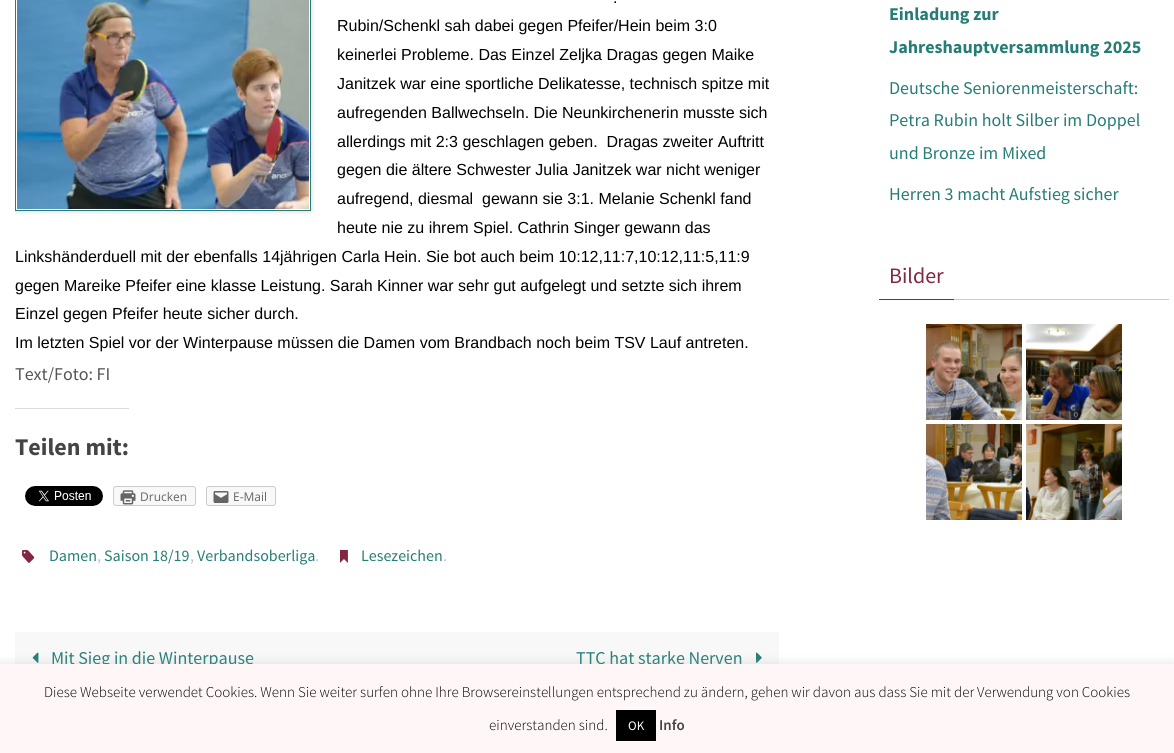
#include <cairo.h>
#include <math.h>
#include <stddef.h>

typedef struct { double x, y; const char *s; } line_t;

static void ink(cairo_t *ctx, unsigned color) {
    cairo_set_source_rgb(ctx, (color >> 16) / 255.0, (color >> 8 & 255) / 255.0, (color & 255) / 255.0);
}

static void round_path(cairo_t *ctx, double x, double y, double w, double h, double r) {
    cairo_new_sub_path(ctx);
    cairo_arc(ctx, x + w - r, y + h - r, r, 0, M_PI / 2);
    cairo_arc(ctx, x + r, y + h - r, r, M_PI / 2, M_PI);
    cairo_arc(ctx, x + r, y + r, r, M_PI, 1.5 * M_PI);
    cairo_arc(ctx, x + w - r, y + r, r, 1.5 * M_PI, 2 * M_PI);
    cairo_close_path(ctx);
}

static void blur_box(cairo_t *ctx, double x, double y, double w, double h, double r, double blur, double alpha) {
    cairo_push_group_with_content(ctx, CAIRO_CONTENT_ALPHA);
    cairo_set_operator(ctx, CAIRO_OPERATOR_SOURCE);
    for (int i = 15; i >= -15 && fmin(w, h) + blur * i / 3 > 0; i -= 2) {
        double e = blur * i / 6;
        cairo_set_source_rgba(ctx, 0, 0, 0, alpha * erfc((i - 1) / 8.5) / 2);
        round_path(ctx, x - e, y - e, w + 2 * e, h + 2 * e, fmax(0, fmin(r + e + blur * .6, fmin(w, h) / 2 + e)));
        cairo_fill(ctx);
    }
    cairo_pattern_t *soft = cairo_pop_group(ctx);
    cairo_mask(ctx, soft);
    cairo_pattern_destroy(soft);
}

static void paste(cairo_t *ctx, const char *path, double x, double y, double w, double h) {
    cairo_surface_t *image = cairo_image_surface_create_from_png(path);
    cairo_save(ctx);
    cairo_set_source_surface(ctx, image, x, y);
    cairo_rectangle(ctx, x, y, w, h);
    cairo_fill(ctx);
    cairo_restore(ctx);
    cairo_surface_destroy(image);
}

int main(void) {
    cairo_surface_t *surface = cairo_image_surface_create(CAIRO_FORMAT_RGB24, 1174, 753);
    cairo_t *ctx = cairo_create(surface);
    cairo_font_options_t *options = cairo_font_options_create();
    cairo_font_options_set_hint_metrics(options, CAIRO_HINT_METRICS_OFF);
    cairo_font_options_set_hint_style(options, CAIRO_HINT_STYLE_NONE);
    cairo_set_font_options(ctx, options);
    cairo_set_miter_limit(ctx, 4);
    ink(ctx, 0xFFFFFF);
    cairo_paint(ctx);
    cairo_save(ctx);
    cairo_rectangle(ctx, 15, 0, 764, 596);
    cairo_clip(ctx);
    cairo_set_fill_rule(ctx, CAIRO_FILL_RULE_EVEN_ODD);
    cairo_new_path(ctx);
    cairo_move_to(ctx, 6, 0);
    cairo_line_to(ctx, 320, 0);
    cairo_line_to(ctx, 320, 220);
    cairo_line_to(ctx, 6, 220);
    cairo_close_path(ctx);
    cairo_move_to(ctx, 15, -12);
    cairo_line_to(ctx, 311, -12);
    cairo_line_to(ctx, 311, 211);
    cairo_line_to(ctx, 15, 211);
    cairo_close_path(ctx);
    cairo_clip(ctx);
    ink(ctx, 0xCDCDCD);
    blur_box(ctx, 15, -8, 296, 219, 0, 2.5, 1);
    cairo_restore(ctx);
    cairo_rectangle(ctx, 15.5, -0.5, 295, 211);
    ink(ctx, 0x287E77);
    cairo_set_line_width(ctx, 1);
    cairo_stroke(ctx);
    paste(ctx, "media/1.png", 17, 0, 292, 209);
    cairo_select_font_face(ctx, "Liberation Sans", CAIRO_FONT_SLANT_NORMAL, CAIRO_FONT_WEIGHT_NORMAL);
    cairo_set_font_size(ctx, 16);
    ink(ctx, 0x000000);
    {
        static const line_t items[] = {
            {613, 3, "."},
            {337, 31, "Rubin/Schenkl sah dabei gegen Pfeifer/Hein beim 3:0"},
            {337, 60, "keinerlei Probleme. Das Einzel Zeljka Dragas gegen Maike"},
            {337, 89, "Janitzek war eine sportliche Delikatesse, technisch spitze mit"},
            {337, 118, "aufregenden Ballwechseln. Die Neunkirchenerin musste sich"},
            {337, 147, "allerdings mit 2:3 geschlagen geben.  Dragas zweiter Auftritt"},
            {337, 175, "gegen die ältere Schwester Julia Janitzek war nicht weniger"},
            {337, 204, "aufregend, diesmal  gewann sie 3:1. Melanie Schenkl fand"},
            {337, 233, "heute nie zu ihrem Spiel. Cathrin Singer gewann das"},
            {15, 262, "Linkshänderduell mit der ebenfalls 14jährigen Carla Hein. Sie bot auch beim 10:12,11:7,10:12,11:5,11:9"},
            {15, 291, "gegen Mareike Pfeifer eine klasse Leistung. Sarah Kinner war sehr gut aufgelegt und setzte sich ihrem"},
            {15, 319, "Einzel gegen Pfeifer heute sicher durch."},
            {15, 348, "Im letzten Spiel vor der Winterpause müssen die Damen vom Brandbach noch beim TSV Lauf antreten."},
        };
        for (size_t i = 0; i < sizeof items / sizeof *items; i++) {
            cairo_move_to(ctx, items[i].x, items[i].y);
            cairo_show_text(ctx, items[i].s);
        }
    }
    cairo_select_font_face(ctx, "Source Sans Pro", CAIRO_FONT_SLANT_NORMAL, CAIRO_FONT_WEIGHT_NORMAL);
    cairo_set_font_size(ctx, 18);
    ink(ctx, 0x555555);
    cairo_move_to(ctx, 15, 380);
    cairo_show_text(ctx, "Text/Foto: FI");
    ink(ctx, 0xDCDCDE);
    cairo_rectangle(ctx, 15, 408, 114, 1);
    cairo_fill(ctx);
    cairo_select_font_face(ctx, "Source Sans Pro", CAIRO_FONT_SLANT_NORMAL, CAIRO_FONT_WEIGHT_BOLD);
    cairo_set_font_size(ctx, 24);
    ink(ctx, 0x444444);
    cairo_move_to(ctx, 15, 455);
    cairo_show_text(ctx, "Teilen mit:");
    paste(ctx, "media/2.png", 25, 486, 78, 20);
    ink(ctx, 0xF8F8F8);
    round_path(ctx, 113.5, 486.5, 82, 19, 2.5);
    cairo_fill_preserve(ctx);
    ink(ctx, 0xCCCCCC);
    cairo_stroke(ctx);
    paste(ctx, "media/3.png", 120, 490, 16, 15);
    cairo_select_font_face(ctx, "Open Sans", CAIRO_FONT_SLANT_NORMAL, CAIRO_FONT_WEIGHT_NORMAL);
    cairo_set_font_size(ctx, 12);
    ink(ctx, 0x656565);
    cairo_move_to(ctx, 140, 501);
    cairo_show_text(ctx, "Drucken");
    ink(ctx, 0xF8F8F8);
    round_path(ctx, 206.5, 486.5, 69, 19, 2.5);
    cairo_fill_preserve(ctx);
    ink(ctx, 0xCCCCCC);
    cairo_stroke(ctx);
    paste(ctx, "media/4.png", 213, 491, 16, 12);
    ink(ctx, 0x656565);
    cairo_move_to(ctx, 233, 501);
    cairo_show_text(ctx, "E-Mail");
    paste(ctx, "media/5.png", 22, 550, 13, 13);
    cairo_select_font_face(ctx, "Source Sans Pro", CAIRO_FONT_SLANT_NORMAL, CAIRO_FONT_WEIGHT_NORMAL);
    cairo_set_font_size(ctx, 16);
    ink(ctx, 0x267D76);
    cairo_move_to(ctx, 49, 561);
    cairo_show_text(ctx, "Damen");
    ink(ctx, 0xC1C1C1);
    cairo_move_to(ctx, 97, 561);
    cairo_show_text(ctx, ",");
    ink(ctx, 0x267D76);
    cairo_move_to(ctx, 104, 561);
    cairo_show_text(ctx, "Saison 18/19");
    ink(ctx, 0xC1C1C1);
    cairo_move_to(ctx, 190, 561);
    cairo_show_text(ctx, ",");
    ink(ctx, 0x267D76);
    cairo_move_to(ctx, 197, 561);
    cairo_show_text(ctx, "Verbandsoberliga");
    ink(ctx, 0xC1C1C1);
    cairo_move_to(ctx, 315, 561);
    cairo_show_text(ctx, ".");
    paste(ctx, "media/6.png", 340, 549, 8, 14);
    ink(ctx, 0x267D76);
    cairo_move_to(ctx, 361, 561);
    cairo_show_text(ctx, "Lesezeichen");
    ink(ctx, 0xC1C1C1);
    cairo_move_to(ctx, 443, 561);
    cairo_show_text(ctx, ".");
    ink(ctx, 0xF8F8F8);
    cairo_rectangle(ctx, 15, 632, 764, 32);
    cairo_fill(ctx);
    paste(ctx, "media/7.png", 32, 652, 7, 11);
    cairo_set_font_size(ctx, 18);
    ink(ctx, 0x267D76);
    cairo_move_to(ctx, 51, 664);
    cairo_show_text(ctx, "Mit Sieg in die Winterpause");
    cairo_move_to(ctx, 576, 664);
    cairo_show_text(ctx, "TTC hat starke Nerven");
    paste(ctx, "media/8.png", 756, 652, 6, 11);
    cairo_select_font_face(ctx, "Source Sans Pro", CAIRO_FONT_SLANT_NORMAL, CAIRO_FONT_WEIGHT_BOLD);
    cairo_move_to(ctx, 889, 20);
    cairo_show_text(ctx, "Einladung zur");
    cairo_move_to(ctx, 889, 53);
    cairo_show_text(ctx, "Jahreshauptversammlung 2025");
    cairo_select_font_face(ctx, "Source Sans Pro", CAIRO_FONT_SLANT_NORMAL, CAIRO_FONT_WEIGHT_NORMAL);
    {
        static const line_t items[] = {
            {889, 94, "Deutsche Seniorenmeisterschaft:"},
            {889, 126, "Petra Rubin holt Silber im Doppel"},
            {889, 159, "und Bronze im Mixed"},
            {889, 200, "Herren 3 macht Aufstieg sicher"},
        };
        for (size_t i = 0; i < sizeof items / sizeof *items; i++) {
            cairo_move_to(ctx, items[i].x, items[i].y);
            cairo_show_text(ctx, items[i].s);
        }
    }
    ink(ctx, 0xCCCCCC);
    cairo_rectangle(ctx, 954, 299, 215, 1);
    cairo_fill(ctx);
    ink(ctx, 0x822742);
    cairo_rectangle(ctx, 879, 299, 75, 1);
    cairo_fill(ctx);
    cairo_set_font_size(ctx, 22);
    cairo_move_to(ctx, 889, 283);
    cairo_show_text(ctx, "Bilder");
    paste(ctx, "media/9.png", 926, 324, 96, 96);
    paste(ctx, "media/10.png", 1026, 324, 96, 96);
    paste(ctx, "media/11.png", 926, 424, 96, 96);
    paste(ctx, "media/12.png", 1026, 424, 96, 96);
    ink(ctx, 0xACABAB);
    blur_box(ctx, 0, 663, 1174, 89, 0, 5, 0.3);
    ink(ctx, 0xFFF7F7);
    cairo_rectangle(ctx, 0, 664, 1174, 89);
    cairo_fill(ctx);
    cairo_select_font_face(ctx, "Source Sans Pro Light", CAIRO_FONT_SLANT_NORMAL, CAIRO_FONT_WEIGHT_NORMAL);
    cairo_set_font_size(ctx, 15);
    ink(ctx, 0x000000);
    cairo_move_to(ctx, 44, 697);
    cairo_show_text(ctx, "Diese Webseite verwendet Cookies. Wenn Sie weiter surfen ohne Ihre Browsereinstellungen entsprechend zu ändern, gehen wir davon aus dass Sie mit der Verwendung von Cookies");
    cairo_move_to(ctx, 489, 730);
    cairo_show_text(ctx, "einverstanden sind.");
    cairo_rectangle(ctx, 616, 710, 40, 31);
    cairo_fill(ctx);
    cairo_select_font_face(ctx, "Source Sans Pro", CAIRO_FONT_SLANT_NORMAL, CAIRO_FONT_WEIGHT_NORMAL);
    cairo_set_font_size(ctx, 13);
    ink(ctx, 0xFFFFFF);
    cairo_move_to(ctx, 628, 730);
    cairo_show_text(ctx, "OK");
    cairo_select_font_face(ctx, "Source Sans Pro SemiBold", CAIRO_FONT_SLANT_NORMAL, CAIRO_FONT_WEIGHT_NORMAL);
    cairo_set_font_size(ctx, 15);
    ink(ctx, 0x444444);
    cairo_move_to(ctx, 659, 730);
    cairo_show_text(ctx, "Info");
    cairo_surface_write_to_png(surface, "image.png");
    cairo_font_options_destroy(options);
    cairo_destroy(ctx);
    cairo_surface_destroy(surface);
    return 0;
}
